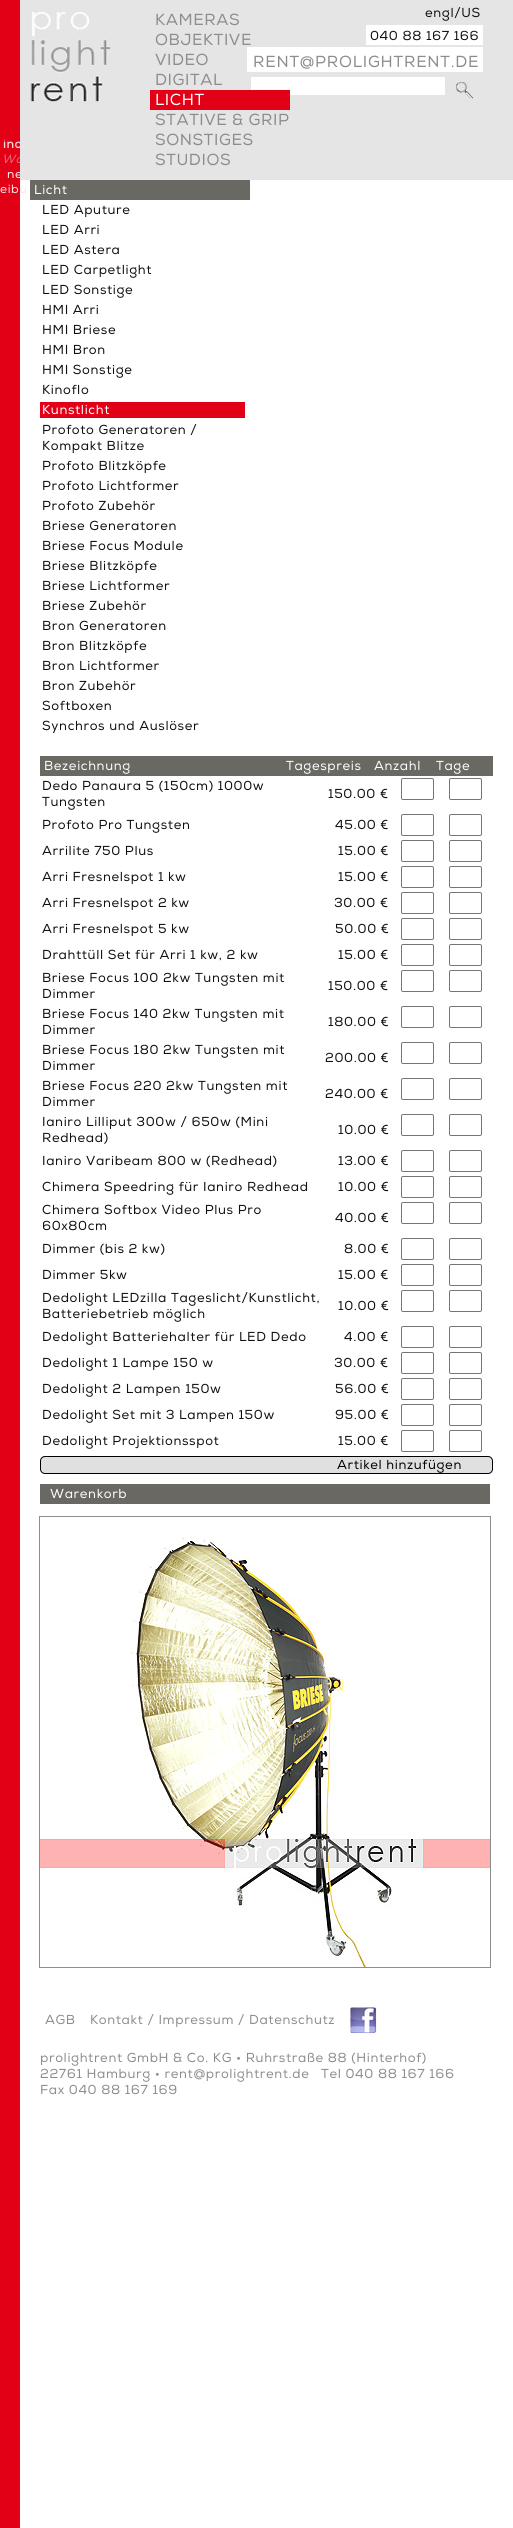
#include <cairo.h>
#include <math.h>
#include <stddef.h>

typedef struct { double x, y; const char *s; } line_t;

static void ink(cairo_t *ctx, unsigned color) {
    cairo_set_source_rgb(ctx, (color >> 16) / 255.0, (color >> 8 & 255) / 255.0, (color & 255) / 255.0);
}

static void write_spaced(cairo_t *ctx, double x, double y, const char *s, double letter, double word) {
    cairo_move_to(ctx, x, y);
    while (*s) {
        char ch[5] = {0};
        int n = 0;
        do ch[n++] = *s++; while ((*s & 0xC0) == 0x80);
        cairo_show_text(ctx, ch);
        cairo_rel_move_to(ctx, letter + word * (*ch == ' '), 0);
    }
}

static void round_path(cairo_t *ctx, double x, double y, double w, double h, double r) {
    cairo_new_sub_path(ctx);
    cairo_arc(ctx, x + w - r, y + h - r, r, 0, M_PI / 2);
    cairo_arc(ctx, x + r, y + h - r, r, M_PI / 2, M_PI);
    cairo_arc(ctx, x + r, y + r, r, M_PI, 1.5 * M_PI);
    cairo_arc(ctx, x + w - r, y + r, r, 1.5 * M_PI, 2 * M_PI);
    cairo_close_path(ctx);
}

static void paste(cairo_t *ctx, const char *path, double x, double y, double w, double h) {
    cairo_surface_t *image = cairo_image_surface_create_from_png(path);
    cairo_save(ctx);
    cairo_set_source_surface(ctx, image, x, y);
    cairo_rectangle(ctx, x, y, w, h);
    cairo_fill(ctx);
    cairo_restore(ctx);
    cairo_surface_destroy(image);
}

int main(void) {
    cairo_surface_t *surface = cairo_image_surface_create(CAIRO_FORMAT_RGB24, 513, 2528);
    cairo_t *ctx = cairo_create(surface);
    cairo_font_options_t *options = cairo_font_options_create();
    cairo_font_options_set_hint_metrics(options, CAIRO_HINT_METRICS_OFF);
    cairo_font_options_set_hint_style(options, CAIRO_HINT_STYLE_NONE);
    cairo_set_font_options(ctx, options);
    cairo_set_miter_limit(ctx, 4);
    ink(ctx, 0xFFFFFF);
    cairo_paint(ctx);
    ink(ctx, 0xE20016);
    cairo_rectangle(ctx, 0, 0, 20, 2528);
    cairo_fill(ctx);
    cairo_select_font_face(ctx, "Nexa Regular", CAIRO_FONT_SLANT_NORMAL, CAIRO_FONT_WEIGHT_BOLD);
    cairo_set_font_size(ctx, 12);
    ink(ctx, 0xFAD7DA);
    write_spaced(ctx, 3, 148, "ind", 0.65, 0);
    cairo_select_font_face(ctx, "Nexa Regular", CAIRO_FONT_SLANT_ITALIC, CAIRO_FONT_WEIGHT_NORMAL);
    ink(ctx, 0xEE6674);
    write_spaced(ctx, 2, 163, "Wo", 0.65, 0);
    cairo_select_font_face(ctx, "Nexa Regular", CAIRO_FONT_SLANT_NORMAL, CAIRO_FONT_WEIGHT_NORMAL);
    ink(ctx, 0xFEF5F6);
    write_spaced(ctx, 7, 178, "ne", 0.65, 0);
    ink(ctx, 0xE5E5E5);
    cairo_rectangle(ctx, 20, 0, 493, 180);
    cairo_fill(ctx);
    paste(ctx, "media/1.png", 30, 12, 81, 90);
    cairo_set_font_size(ctx, 16);
    ink(ctx, 0x8D8D8D);
    {
        static const line_t items[] = {
            {155, 25, "KAMERAS"},
            {155, 45, "OBJEKTIVE"},
            {155, 65, "VIDEO"},
            {155, 85, "DIGITAL"},
        };
        for (size_t i = 0; i < sizeof items / sizeof *items; i++) {
            write_spaced(ctx, items[i].x, items[i].y, items[i].s, 0.6, 0);
        }
    }
    ink(ctx, 0xFFFFFF);
    cairo_rectangle(ctx, 251, 77, 194, 18);
    cairo_fill(ctx);
    ink(ctx, 0xE20016);
    cairo_rectangle(ctx, 150, 90, 140, 20);
    cairo_fill(ctx);
    ink(ctx, 0xFFFFFF);
    write_spaced(ctx, 155, 105, "LICHT", 0.6, 0);
    ink(ctx, 0x8D8D8D);
    {
        static const line_t items[] = {
            {155, 125, "STATIVE & GRIP"},
            {155, 145, "SONSTIGES"},
            {155, 165, "STUDIOS"},
        };
        for (size_t i = 0; i < sizeof items / sizeof *items; i++) {
            write_spaced(ctx, items[i].x, items[i].y, items[i].s, 0.6, 0);
        }
    }
    cairo_set_font_size(ctx, 13);
    ink(ctx, 0x101010);
    write_spaced(ctx, 425, 17, "engl/US", 0.65, 0);
    ink(ctx, 0xFFFFFF);
    cairo_rectangle(ctx, 366, 25, 117, 20);
    cairo_fill(ctx);
    ink(ctx, 0x101010);
    write_spaced(ctx, 370, 40, "040 88 167 166", 0.65, 0);
    ink(ctx, 0xFFFFFF);
    cairo_rectangle(ctx, 247, 47, 236, 25);
    cairo_fill(ctx);
    cairo_set_font_size(ctx, 16);
    ink(ctx, 0x8D8D8D);
    write_spaced(ctx, 253, 67, "RENT@PROLIGHTRENT.DE", 0.8, 0);
    paste(ctx, "media/2.png", 456, 82, 18, 17);
    cairo_set_font_size(ctx, 12);
    ink(ctx, 0xFCE3E5);
    write_spaced(ctx, 0, 193, "eibu", 0.65, 0);
    ink(ctx, 0x6A6863);
    cairo_rectangle(ctx, 30, 180, 220, 20);
    cairo_fill(ctx);
    cairo_set_font_size(ctx, 13);
    ink(ctx, 0xFFFFFF);
    write_spaced(ctx, 34, 194, "Licht", 0.65, 0);
    ink(ctx, 0x101010);
    {
        static const line_t items[] = {
            {42, 214, "LED Aputure"},
            {42, 234, "LED Arri"},
            {42, 254, "LED Astera"},
            {42, 274, "LED Carpetlight"},
            {42, 294, "LED Sonstige"},
            {42, 314, "HMI Arri"},
            {42, 334, "HMI Briese"},
            {42, 354, "HMI Bron"},
            {42, 374, "HMI Sonstige"},
            {42, 394, "Kinoflo"},
        };
        for (size_t i = 0; i < sizeof items / sizeof *items; i++) {
            write_spaced(ctx, items[i].x, items[i].y, items[i].s, 0.65, 0);
        }
    }
    ink(ctx, 0xE20016);
    cairo_rectangle(ctx, 40, 402, 205, 16);
    cairo_fill(ctx);
    ink(ctx, 0xFFFFFF);
    write_spaced(ctx, 42, 414, "Kunstlicht", 0.65, 0);
    ink(ctx, 0x101010);
    {
        static const line_t items[] = {
            {42, 434, "Profoto Generatoren /"},
            {42, 450, "Kompakt Blitze"},
            {42, 470, "Profoto Blitzköpfe"},
            {42, 490, "Profoto Lichtformer"},
            {42, 510, "Profoto Zubehör"},
            {42, 530, "Briese Generatoren"},
            {42, 550, "Briese Focus Module"},
            {42, 570, "Briese Blitzköpfe"},
            {42, 590, "Briese Lichtformer"},
            {42, 610, "Briese Zubehör"},
            {42, 630, "Bron Generatoren"},
            {42, 650, "Bron Blitzköpfe"},
            {42, 670, "Bron Lichtformer"},
            {42, 690, "Bron Zubehör"},
            {42, 710, "Softboxen"},
            {42, 730, "Synchros und Auslöser"},
        };
        for (size_t i = 0; i < sizeof items / sizeof *items; i++) {
            write_spaced(ctx, items[i].x, items[i].y, items[i].s, 0.65, 0);
        }
    }
    ink(ctx, 0x6A6863);
    cairo_rectangle(ctx, 40, 756, 453, 20);
    cairo_fill(ctx);
    ink(ctx, 0xFFFFFF);
    {
        static const line_t items[] = {
            {44, 770, "Bezeichnung"},
            {286, 770, "Tagespreis"},
            {374, 770, "Anzahl"},
            {436, 770, "Tage"},
        };
        for (size_t i = 0; i < sizeof items / sizeof *items; i++) {
            write_spaced(ctx, items[i].x, items[i].y, items[i].s, 0.65, 0);
        }
    }
    ink(ctx, 0x101010);
    {
        static const line_t items[] = {
            {42, 790, "Dedo Panaura 5 (150cm) 1000w"},
            {42, 806, "Tungsten"},
            {328, 798, "150.00 €"},
        };
        for (size_t i = 0; i < sizeof items / sizeof *items; i++) {
            write_spaced(ctx, items[i].x, items[i].y, items[i].s, 0.65, 0);
        }
    }
    round_path(ctx, 401.5, 778.5, 32, 21, 1.5);
    ink(ctx, 0x767676);
    cairo_set_line_width(ctx, 1);
    cairo_stroke(ctx);
    round_path(ctx, 449.5, 778.5, 32, 21, 1.5);
    cairo_stroke(ctx);
    ink(ctx, 0x101010);
    write_spaced(ctx, 42, 829, "Profoto Pro Tungsten", 0.65, 0);
    write_spaced(ctx, 335, 829, "45.00 €", 0.65, 0);
    round_path(ctx, 401.5, 814.5, 32, 21, 1.5);
    ink(ctx, 0x767676);
    cairo_stroke(ctx);
    round_path(ctx, 449.5, 814.5, 32, 21, 1.5);
    cairo_stroke(ctx);
    ink(ctx, 0x101010);
    write_spaced(ctx, 42, 855, "Arrilite 750 Plus", 0.65, 0);
    write_spaced(ctx, 338, 855, "15.00 €", 0.65, 0);
    round_path(ctx, 401.5, 840.5, 32, 21, 1.5);
    ink(ctx, 0x767676);
    cairo_stroke(ctx);
    round_path(ctx, 449.5, 840.5, 32, 21, 1.5);
    cairo_stroke(ctx);
    ink(ctx, 0x101010);
    write_spaced(ctx, 42, 881, "Arri Fresnelspot 1 kw", 0.65, 0);
    write_spaced(ctx, 338, 881, "15.00 €", 0.65, 0);
    round_path(ctx, 401.5, 866.5, 32, 21, 1.5);
    ink(ctx, 0x767676);
    cairo_stroke(ctx);
    round_path(ctx, 449.5, 866.5, 32, 21, 1.5);
    cairo_stroke(ctx);
    ink(ctx, 0x101010);
    write_spaced(ctx, 42, 907, "Arri Fresnelspot 2 kw", 0.65, 0);
    write_spaced(ctx, 334, 907, "30.00 €", 0.65, 0);
    round_path(ctx, 401.5, 892.5, 32, 21, 1.5);
    ink(ctx, 0x767676);
    cairo_stroke(ctx);
    round_path(ctx, 449.5, 892.5, 32, 21, 1.5);
    cairo_stroke(ctx);
    ink(ctx, 0x101010);
    write_spaced(ctx, 42, 933, "Arri Fresnelspot 5 kw", 0.65, 0);
    write_spaced(ctx, 335, 933, "50.00 €", 0.65, 0);
    round_path(ctx, 401.5, 918.5, 32, 21, 1.5);
    ink(ctx, 0x767676);
    cairo_stroke(ctx);
    round_path(ctx, 449.5, 918.5, 32, 21, 1.5);
    cairo_stroke(ctx);
    ink(ctx, 0x101010);
    write_spaced(ctx, 42, 959, "Drahttüll Set für Arri 1 kw, 2 kw", 0.65, 0);
    write_spaced(ctx, 338, 959, "15.00 €", 0.65, 0);
    round_path(ctx, 401.5, 944.5, 32, 21, 1.5);
    ink(ctx, 0x767676);
    cairo_stroke(ctx);
    round_path(ctx, 449.5, 944.5, 32, 21, 1.5);
    cairo_stroke(ctx);
    ink(ctx, 0x101010);
    {
        static const line_t items[] = {
            {42, 982, "Briese Focus 100 2kw Tungsten mit"},
            {42, 998, "Dimmer"},
            {328, 990, "150.00 €"},
        };
        for (size_t i = 0; i < sizeof items / sizeof *items; i++) {
            write_spaced(ctx, items[i].x, items[i].y, items[i].s, 0.65, 0);
        }
    }
    round_path(ctx, 401.5, 970.5, 32, 21, 1.5);
    ink(ctx, 0x767676);
    cairo_stroke(ctx);
    round_path(ctx, 449.5, 970.5, 32, 21, 1.5);
    cairo_stroke(ctx);
    ink(ctx, 0x101010);
    {
        static const line_t items[] = {
            {42, 1018, "Briese Focus 140 2kw Tungsten mit"},
            {42, 1034, "Dimmer"},
            {328, 1026, "180.00 €"},
        };
        for (size_t i = 0; i < sizeof items / sizeof *items; i++) {
            write_spaced(ctx, items[i].x, items[i].y, items[i].s, 0.65, 0);
        }
    }
    round_path(ctx, 401.5, 1006.5, 32, 21, 1.5);
    ink(ctx, 0x767676);
    cairo_stroke(ctx);
    round_path(ctx, 449.5, 1006.5, 32, 21, 1.5);
    cairo_stroke(ctx);
    ink(ctx, 0x101010);
    {
        static const line_t items[] = {
            {42, 1054, "Briese Focus 180 2kw Tungsten mit"},
            {42, 1070, "Dimmer"},
            {325, 1062, "200.00 €"},
        };
        for (size_t i = 0; i < sizeof items / sizeof *items; i++) {
            write_spaced(ctx, items[i].x, items[i].y, items[i].s, 0.65, 0);
        }
    }
    round_path(ctx, 401.5, 1042.5, 32, 21, 1.5);
    ink(ctx, 0x767676);
    cairo_stroke(ctx);
    round_path(ctx, 449.5, 1042.5, 32, 21, 1.5);
    cairo_stroke(ctx);
    ink(ctx, 0x101010);
    {
        static const line_t items[] = {
            {42, 1090, "Briese Focus 220 2kw Tungsten mit"},
            {42, 1106, "Dimmer"},
            {325, 1098, "240.00 €"},
        };
        for (size_t i = 0; i < sizeof items / sizeof *items; i++) {
            write_spaced(ctx, items[i].x, items[i].y, items[i].s, 0.65, 0);
        }
    }
    round_path(ctx, 401.5, 1078.5, 32, 21, 1.5);
    ink(ctx, 0x767676);
    cairo_stroke(ctx);
    round_path(ctx, 449.5, 1078.5, 32, 21, 1.5);
    cairo_stroke(ctx);
    ink(ctx, 0x101010);
    {
        static const line_t items[] = {
            {42, 1126, "Ianiro Lilliput 300w / 650w (Mini"},
            {42, 1142, "Redhead)"},
            {338, 1134, "10.00 €"},
        };
        for (size_t i = 0; i < sizeof items / sizeof *items; i++) {
            write_spaced(ctx, items[i].x, items[i].y, items[i].s, 0.65, 0);
        }
    }
    round_path(ctx, 401.5, 1114.5, 32, 21, 1.5);
    ink(ctx, 0x767676);
    cairo_stroke(ctx);
    round_path(ctx, 449.5, 1114.5, 32, 21, 1.5);
    cairo_stroke(ctx);
    ink(ctx, 0x101010);
    write_spaced(ctx, 42, 1165, "Ianiro Varibeam 800 w (Redhead)", 0.65, 0);
    write_spaced(ctx, 338, 1165, "13.00 €", 0.65, 0);
    round_path(ctx, 401.5, 1150.5, 32, 21, 1.5);
    ink(ctx, 0x767676);
    cairo_stroke(ctx);
    round_path(ctx, 449.5, 1150.5, 32, 21, 1.5);
    cairo_stroke(ctx);
    ink(ctx, 0x101010);
    write_spaced(ctx, 42, 1191, "Chimera Speedring für Ianiro Redhead", 0.65, 0);
    write_spaced(ctx, 338, 1191, "10.00 €", 0.65, 0);
    round_path(ctx, 401.5, 1176.5, 32, 21, 1.5);
    ink(ctx, 0x767676);
    cairo_stroke(ctx);
    round_path(ctx, 449.5, 1176.5, 32, 21, 1.5);
    cairo_stroke(ctx);
    ink(ctx, 0x101010);
    {
        static const line_t items[] = {
            {42, 1214, "Chimera Softbox Video Plus Pro"},
            {42, 1230, "60x80cm"},
            {335, 1222, "40.00 €"},
        };
        for (size_t i = 0; i < sizeof items / sizeof *items; i++) {
            write_spaced(ctx, items[i].x, items[i].y, items[i].s, 0.65, 0);
        }
    }
    round_path(ctx, 401.5, 1202.5, 32, 21, 1.5);
    ink(ctx, 0x767676);
    cairo_stroke(ctx);
    round_path(ctx, 449.5, 1202.5, 32, 21, 1.5);
    cairo_stroke(ctx);
    ink(ctx, 0x101010);
    write_spaced(ctx, 42, 1253, "Dimmer (bis 2 kw)", 0.65, 0);
    write_spaced(ctx, 344, 1253, "8.00 €", 0.65, 0);
    round_path(ctx, 401.5, 1238.5, 32, 21, 1.5);
    ink(ctx, 0x767676);
    cairo_stroke(ctx);
    round_path(ctx, 449.5, 1238.5, 32, 21, 1.5);
    cairo_stroke(ctx);
    ink(ctx, 0x101010);
    write_spaced(ctx, 42, 1279, "Dimmer 5kw", 0.65, 0);
    write_spaced(ctx, 338, 1279, "15.00 €", 0.65, 0);
    round_path(ctx, 401.5, 1264.5, 32, 21, 1.5);
    ink(ctx, 0x767676);
    cairo_stroke(ctx);
    round_path(ctx, 449.5, 1264.5, 32, 21, 1.5);
    cairo_stroke(ctx);
    ink(ctx, 0x101010);
    {
        static const line_t items[] = {
            {42, 1302, "Dedolight LEDzilla Tageslicht/Kunstlicht,"},
            {42, 1318, "Batteriebetrieb möglich"},
            {338, 1310, "10.00 €"},
        };
        for (size_t i = 0; i < sizeof items / sizeof *items; i++) {
            write_spaced(ctx, items[i].x, items[i].y, items[i].s, 0.65, 0);
        }
    }
    round_path(ctx, 401.5, 1290.5, 32, 21, 1.5);
    ink(ctx, 0x767676);
    cairo_stroke(ctx);
    round_path(ctx, 449.5, 1290.5, 32, 21, 1.5);
    cairo_stroke(ctx);
    ink(ctx, 0x101010);
    write_spaced(ctx, 42, 1341, "Dedolight Batteriehalter für LED Dedo", 0.65, 0);
    write_spaced(ctx, 344, 1341, "4.00 €", 0.65, 0);
    round_path(ctx, 401.5, 1326.5, 32, 21, 1.5);
    ink(ctx, 0x767676);
    cairo_stroke(ctx);
    round_path(ctx, 449.5, 1326.5, 32, 21, 1.5);
    cairo_stroke(ctx);
    ink(ctx, 0x101010);
    write_spaced(ctx, 42, 1367, "Dedolight 1 Lampe 150 w", 0.65, 0);
    write_spaced(ctx, 334, 1367, "30.00 €", 0.65, 0);
    round_path(ctx, 401.5, 1352.5, 32, 21, 1.5);
    ink(ctx, 0x767676);
    cairo_stroke(ctx);
    round_path(ctx, 449.5, 1352.5, 32, 21, 1.5);
    cairo_stroke(ctx);
    ink(ctx, 0x101010);
    write_spaced(ctx, 42, 1393, "Dedolight 2 Lampen 150w", 0.65, 0);
    write_spaced(ctx, 335, 1393, "56.00 €", 0.65, 0);
    round_path(ctx, 401.5, 1378.5, 32, 21, 1.5);
    ink(ctx, 0x767676);
    cairo_stroke(ctx);
    round_path(ctx, 449.5, 1378.5, 32, 21, 1.5);
    cairo_stroke(ctx);
    ink(ctx, 0x101010);
    write_spaced(ctx, 42, 1419, "Dedolight Set mit 3 Lampen 150w", 0.65, 0);
    write_spaced(ctx, 335, 1419, "95.00 €", 0.65, 0);
    round_path(ctx, 401.5, 1404.5, 32, 21, 1.5);
    ink(ctx, 0x767676);
    cairo_stroke(ctx);
    round_path(ctx, 449.5, 1404.5, 32, 21, 1.5);
    cairo_stroke(ctx);
    ink(ctx, 0x101010);
    write_spaced(ctx, 42, 1445, "Dedolight Projektionsspot", 0.65, 0);
    write_spaced(ctx, 338, 1445, "15.00 €", 0.65, 0);
    round_path(ctx, 401.5, 1430.5, 32, 21, 1.5);
    ink(ctx, 0x767676);
    cairo_stroke(ctx);
    round_path(ctx, 449.5, 1430.5, 32, 21, 1.5);
    cairo_stroke(ctx);
    ink(ctx, 0xE0E0E0);
    round_path(ctx, 40.5, 1456.5, 452, 17, 4.5);
    cairo_fill_preserve(ctx);
    ink(ctx, 0x000000);
    cairo_stroke(ctx);
    write_spaced(ctx, 337, 1469, "Artikel hinzufügen", 0.65, 0);
    ink(ctx, 0x6A6863);
    cairo_rectangle(ctx, 40, 1484, 450, 20);
    cairo_fill(ctx);
    ink(ctx, 0xFFFFFF);
    write_spaced(ctx, 50, 1498, "Warenkorb", 0.65, 0);
    paste(ctx, "media/3.png", 40, 1538, 450, 429);
    cairo_rectangle(ctx, 39.5, 1516.5, 451, 451);
    ink(ctx, 0x8D8D8D);
    cairo_stroke(ctx);
    write_spaced(ctx, 45, 2024, "AGB", 0.65, 0);
    write_spaced(ctx, 90, 2024, "Kontakt / Impressum / Datenschutz", 0.65, 0);
    paste(ctx, "media/4.png", 350, 2007, 27, 27);
    {
        static const line_t items[] = {
            {40, 2062, "prolightrent GmbH & Co. KG • Ruhrstraße 88 (Hinterhof)"},
            {40, 2078, "22761 Hamburg • rent@prolightrent.de"},
            {321, 2078, "Tel 040 88 167 166"},
            {40, 2094, "Fax 040 88 167 169"},
        };
        for (size_t i = 0; i < sizeof items / sizeof *items; i++) {
            write_spaced(ctx, items[i].x, items[i].y, items[i].s, 0.65, 0);
        }
    }
    cairo_surface_write_to_png(surface, "image.png");
    cairo_font_options_destroy(options);
    cairo_destroy(ctx);
    cairo_surface_destroy(surface);
    return 0;
}
